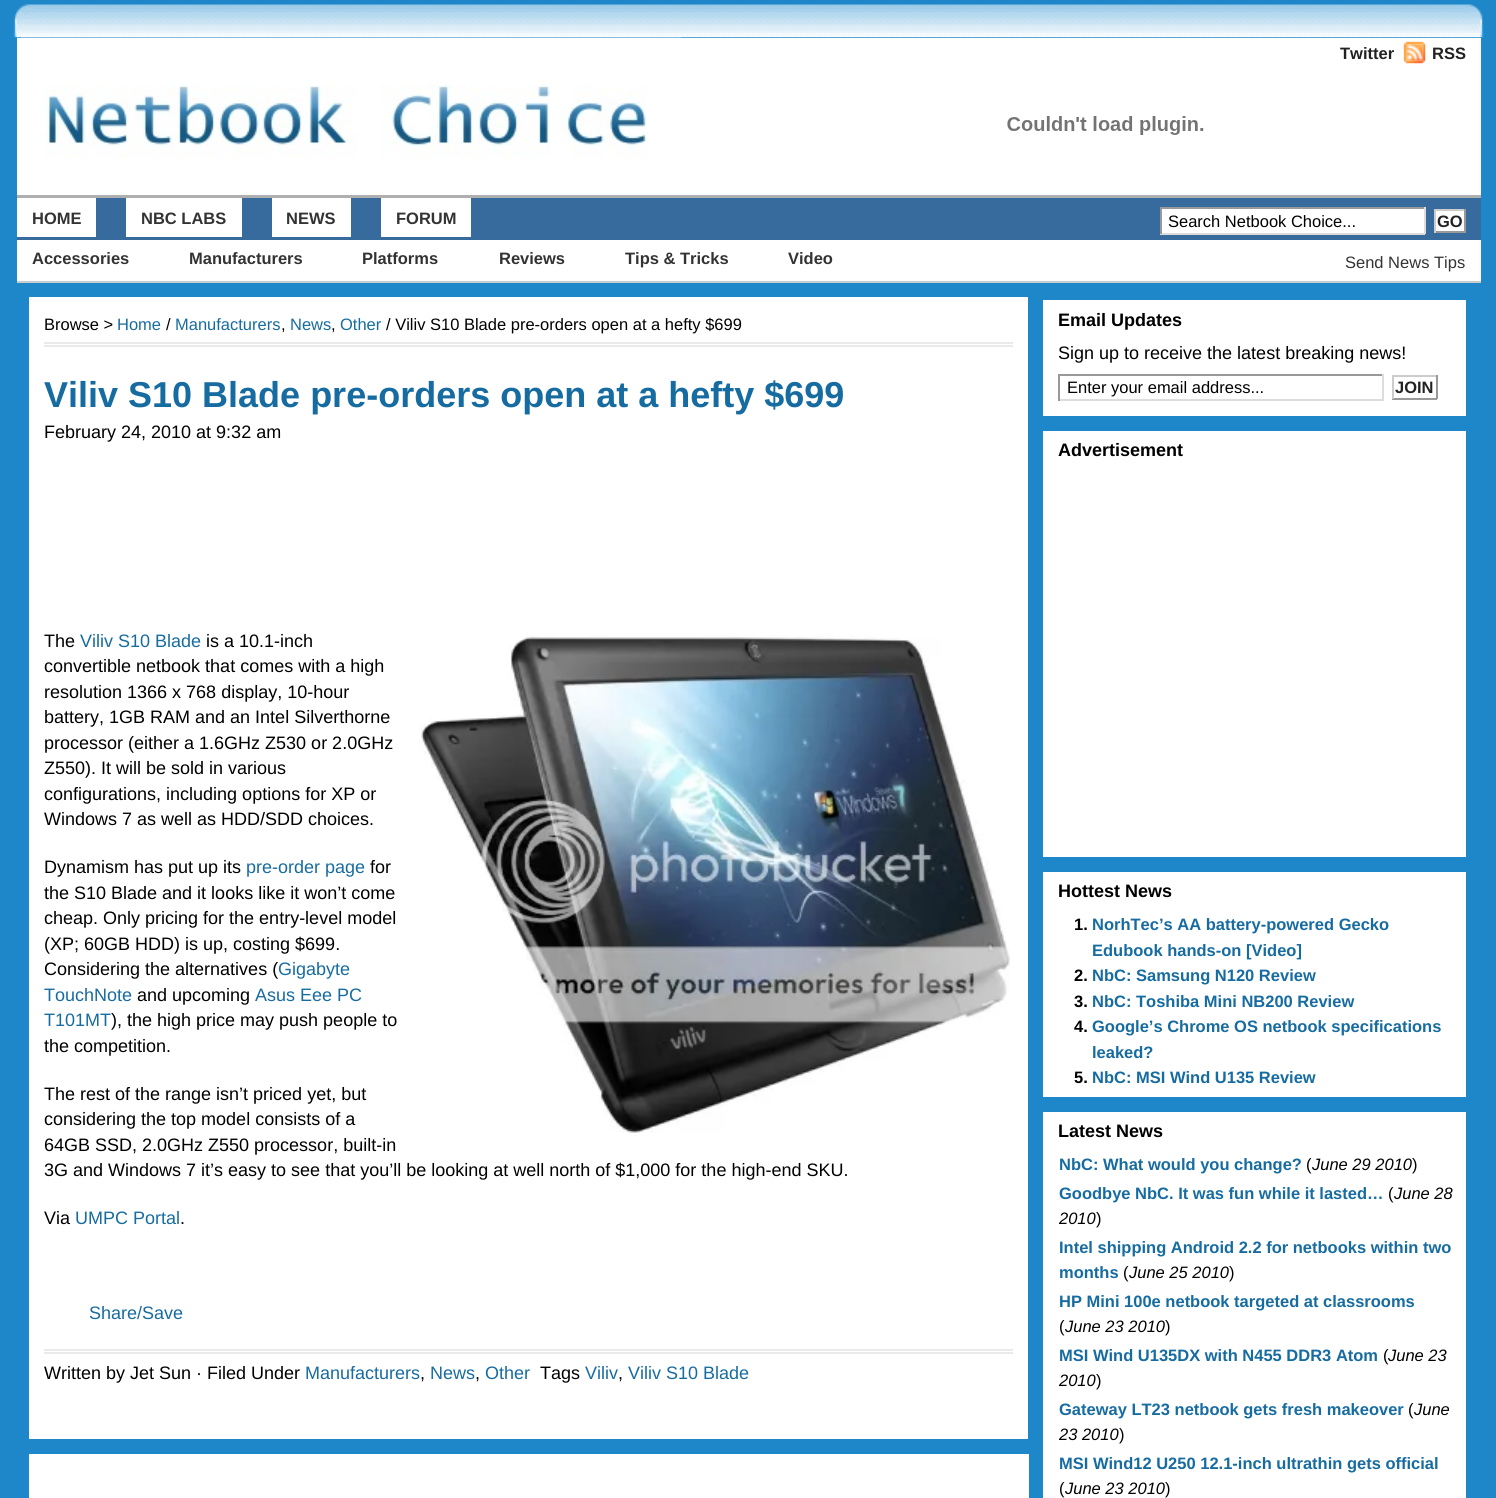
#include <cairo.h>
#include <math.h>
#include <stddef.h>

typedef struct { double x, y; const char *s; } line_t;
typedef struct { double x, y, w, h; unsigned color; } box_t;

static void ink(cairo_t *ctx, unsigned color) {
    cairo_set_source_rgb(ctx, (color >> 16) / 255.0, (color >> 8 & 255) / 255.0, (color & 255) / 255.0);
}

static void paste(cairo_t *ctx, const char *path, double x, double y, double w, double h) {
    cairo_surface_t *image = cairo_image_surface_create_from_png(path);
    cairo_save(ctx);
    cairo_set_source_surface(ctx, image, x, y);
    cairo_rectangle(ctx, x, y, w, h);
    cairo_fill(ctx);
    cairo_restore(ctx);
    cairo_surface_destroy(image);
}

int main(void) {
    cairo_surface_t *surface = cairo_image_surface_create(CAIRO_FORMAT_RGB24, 1496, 1498);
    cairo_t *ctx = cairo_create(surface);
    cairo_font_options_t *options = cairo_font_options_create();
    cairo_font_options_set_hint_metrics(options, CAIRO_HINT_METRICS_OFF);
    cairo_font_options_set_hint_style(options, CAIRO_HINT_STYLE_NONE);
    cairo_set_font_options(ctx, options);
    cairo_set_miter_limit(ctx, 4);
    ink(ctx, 0x1D87C9);
    cairo_paint(ctx);
    paste(ctx, "media/1.png", 13, 4, 1471, 34);
    ink(ctx, 0xFFFFFF);
    cairo_rectangle(ctx, 17, 38, 1464, 157);
    cairo_fill(ctx);
    paste(ctx, "media/2.png", 21, 37, 660, 121);
    cairo_select_font_face(ctx, "Liberation Sans", CAIRO_FONT_SLANT_NORMAL, CAIRO_FONT_WEIGHT_BOLD);
    cairo_set_font_size(ctx, 16.5);
    ink(ctx, 0x222222);
    cairo_move_to(ctx, 1340, 59);
    cairo_show_text(ctx, "Twitter");
    paste(ctx, "media/3.png", 1403, 41, 23, 23);
    cairo_move_to(ctx, 1432, 59);
    cairo_show_text(ctx, "RSS");
    paste(ctx, "media/4.png", 1007, 116, 197, 19);
    {
        static const box_t items[] = {
            {17, 198, 1464, 42, 0x376B9D},
            {17, 195, 1464, 3, 0xAFAFAF},
            {17, 198, 79, 39, 0xFFFFFF},
        };
        for (size_t i = 0; i < sizeof items / sizeof *items; i++) {
            ink(ctx, items[i].color);
            cairo_rectangle(ctx, items[i].x, items[i].y, items[i].w, items[i].h);
            cairo_fill(ctx);
        }
    }
    ink(ctx, 0x333333);
    cairo_move_to(ctx, 32, 224);
    cairo_show_text(ctx, "HOME");
    ink(ctx, 0xFFFFFF);
    cairo_rectangle(ctx, 126, 198, 116, 39);
    cairo_fill(ctx);
    ink(ctx, 0x333333);
    cairo_move_to(ctx, 141, 224);
    cairo_show_text(ctx, "NBC LABS");
    ink(ctx, 0xFFFFFF);
    cairo_rectangle(ctx, 272, 198, 79, 39);
    cairo_fill(ctx);
    ink(ctx, 0x333333);
    cairo_move_to(ctx, 286, 224);
    cairo_show_text(ctx, "NEWS");
    ink(ctx, 0xFFFFFF);
    cairo_rectangle(ctx, 381, 198, 90, 39);
    cairo_fill(ctx);
    ink(ctx, 0x333333);
    cairo_move_to(ctx, 396, 224);
    cairo_show_text(ctx, "FORUM");
    {
        static const box_t items[] = {
            {1162, 209, 262, 24, 0xFFFFFF},
            {1160, 207, 265, 2, 0x999999},
            {1424, 207, 2, 27, 0xDDDDDD},
            {1160, 233, 265, 2, 0xDDDDDD},
            {1160, 207, 2, 27, 0x999999},
        };
        for (size_t i = 0; i < sizeof items / sizeof *items; i++) {
            ink(ctx, items[i].color);
            cairo_rectangle(ctx, items[i].x, items[i].y, items[i].w, items[i].h);
            cairo_fill(ctx);
        }
    }
    cairo_select_font_face(ctx, "Liberation Sans", CAIRO_FONT_SLANT_NORMAL, CAIRO_FONT_WEIGHT_NORMAL);
    ink(ctx, 0x000000);
    cairo_move_to(ctx, 1168, 227);
    cairo_show_text(ctx, "Search Netbook Choice...");
    {
        static const box_t items[] = {
            {1436, 211, 28, 20, 0xFFFFFF},
            {1434, 209, 32, 2, 0xCCCCCC},
            {1464, 209, 2, 24, 0x999999},
            {1434, 231, 32, 2, 0x999999},
            {1434, 209, 2, 24, 0xCCCCCC},
        };
        for (size_t i = 0; i < sizeof items / sizeof *items; i++) {
            ink(ctx, items[i].color);
            cairo_rectangle(ctx, items[i].x, items[i].y, items[i].w, items[i].h);
            cairo_fill(ctx);
        }
    }
    cairo_select_font_face(ctx, "Liberation Sans", CAIRO_FONT_SLANT_NORMAL, CAIRO_FONT_WEIGHT_BOLD);
    ink(ctx, 0x222222);
    cairo_move_to(ctx, 1437, 227);
    cairo_show_text(ctx, "GO");
    ink(ctx, 0xFFFFFF);
    cairo_rectangle(ctx, 17, 240, 1464, 41);
    cairo_fill(ctx);
    ink(ctx, 0xCCCCCC);
    cairo_rectangle(ctx, 17, 281, 1464, 2);
    cairo_fill(ctx);
    ink(ctx, 0x333333);
    {
        static const line_t items[] = {
            {32, 264, "Accessories"},
            {189, 264, "Manufacturers"},
            {362, 264, "Platforms"},
            {499, 264, "Reviews"},
            {625, 264, "Tips & Tricks"},
            {788, 264, "Video"},
        };
        for (size_t i = 0; i < sizeof items / sizeof *items; i++) {
            cairo_move_to(ctx, items[i].x, items[i].y);
            cairo_show_text(ctx, items[i].s);
        }
    }
    cairo_select_font_face(ctx, "Liberation Sans", CAIRO_FONT_SLANT_NORMAL, CAIRO_FONT_WEIGHT_NORMAL);
    cairo_move_to(ctx, 1345, 268);
    cairo_show_text(ctx, "Send News Tips");
    {
        static const box_t items[] = {
            {29, 297, 999, 1142, 0xFFFFFF},
            {44, 342, 969, 2, 0xEAEAEA},
            {44, 345, 969, 2, 0xEAEAEA},
        };
        for (size_t i = 0; i < sizeof items / sizeof *items; i++) {
            ink(ctx, items[i].color);
            cairo_rectangle(ctx, items[i].x, items[i].y, items[i].w, items[i].h);
            cairo_fill(ctx);
        }
    }
    ink(ctx, 0x000000);
    cairo_move_to(ctx, 44, 330);
    cairo_show_text(ctx, "Browse >");
    ink(ctx, 0x166CA1);
    cairo_move_to(ctx, 117, 330);
    cairo_show_text(ctx, "Home");
    ink(ctx, 0x000000);
    cairo_move_to(ctx, 166, 330);
    cairo_show_text(ctx, "/");
    ink(ctx, 0x166CA1);
    cairo_move_to(ctx, 175, 330);
    cairo_show_text(ctx, "Manufacturers");
    ink(ctx, 0x000000);
    cairo_move_to(ctx, 281, 330);
    cairo_show_text(ctx, ",");
    ink(ctx, 0x166CA1);
    cairo_move_to(ctx, 290, 330);
    cairo_show_text(ctx, "News");
    ink(ctx, 0x000000);
    cairo_move_to(ctx, 331, 330);
    cairo_show_text(ctx, ",");
    ink(ctx, 0x166CA1);
    cairo_move_to(ctx, 340, 330);
    cairo_show_text(ctx, "Other");
    ink(ctx, 0x000000);
    cairo_move_to(ctx, 386, 330);
    cairo_show_text(ctx, "/ Viliv S10 Blade pre-orders open at a hefty $699");
    cairo_select_font_face(ctx, "Liberation Sans", CAIRO_FONT_SLANT_NORMAL, CAIRO_FONT_WEIGHT_BOLD);
    cairo_set_font_size(ctx, 36);
    ink(ctx, 0x166CA1);
    cairo_move_to(ctx, 44, 407);
    cairo_show_text(ctx, "Viliv S10 Blade pre-orders open at a hefty $699");
    cairo_select_font_face(ctx, "Liberation Sans", CAIRO_FONT_SLANT_NORMAL, CAIRO_FONT_WEIGHT_NORMAL);
    cairo_set_font_size(ctx, 18);
    ink(ctx, 0x000000);
    cairo_move_to(ctx, 44, 438);
    cairo_show_text(ctx, "February 24, 2010 at 9:32 am");
    cairo_move_to(ctx, 44, 647);
    cairo_show_text(ctx, "The");
    ink(ctx, 0x166CA1);
    cairo_move_to(ctx, 80, 647);
    cairo_show_text(ctx, "Viliv S10 Blade");
    ink(ctx, 0x000000);
    cairo_move_to(ctx, 206, 647);
    cairo_show_text(ctx, "is a 10.1-inch");
    paste(ctx, "media/5.png", 419, 635, 591, 498);
    {
        static const line_t items[] = {
            {44, 672, "convertible netbook that comes with a high"},
            {44, 698, "resolution 1366 x 768 display, 10-hour"},
            {44, 723, "battery, 1GB RAM and an Intel Silverthorne"},
            {44, 749, "processor (either a 1.6GHz Z530 or 2.0GHz"},
            {44, 774, "Z550). It will be sold in various"},
            {44, 800, "configurations, including options for XP or"},
            {44, 825, "Windows 7 as well as HDD/SDD choices."},
            {44, 873, "Dynamism has put up its"},
        };
        for (size_t i = 0; i < sizeof items / sizeof *items; i++) {
            cairo_move_to(ctx, items[i].x, items[i].y);
            cairo_show_text(ctx, items[i].s);
        }
    }
    ink(ctx, 0x166CA1);
    cairo_move_to(ctx, 246, 873);
    cairo_show_text(ctx, "pre-order page");
    ink(ctx, 0x000000);
    {
        static const line_t items[] = {
            {370, 873, "for"},
            {44, 899, "the S10 Blade and it looks like it won’t come"},
            {44, 924, "cheap. Only pricing for the entry-level model"},
            {44, 950, "(XP; 60GB HDD) is up, costing $699."},
            {44, 975, "Considering the alternatives ("},
        };
        for (size_t i = 0; i < sizeof items / sizeof *items; i++) {
            cairo_move_to(ctx, items[i].x, items[i].y);
            cairo_show_text(ctx, items[i].s);
        }
    }
    ink(ctx, 0x166CA1);
    cairo_move_to(ctx, 278, 975);
    cairo_show_text(ctx, "Gigabyte");
    cairo_move_to(ctx, 44, 1001);
    cairo_show_text(ctx, "TouchNote");
    ink(ctx, 0x000000);
    cairo_move_to(ctx, 137, 1001);
    cairo_show_text(ctx, "and upcoming");
    ink(ctx, 0x166CA1);
    cairo_move_to(ctx, 255, 1001);
    cairo_show_text(ctx, "Asus Eee PC");
    cairo_move_to(ctx, 44, 1026);
    cairo_show_text(ctx, "T101MT");
    ink(ctx, 0x000000);
    {
        static const line_t items[] = {
            {111, 1026, "), the high price may push people to"},
            {44, 1052, "the competition."},
            {44, 1100, "The rest of the range isn’t priced yet, but"},
            {44, 1125, "considering the top model consists of a"},
            {44, 1151, "64GB SSD, 2.0GHz Z550 processor, built-in"},
            {44, 1176, "3G and Windows 7 it’s easy to see that you’ll be looking at well north of $1,000 for the high-end SKU."},
            {44, 1224, "Via"},
        };
        for (size_t i = 0; i < sizeof items / sizeof *items; i++) {
            cairo_move_to(ctx, items[i].x, items[i].y);
            cairo_show_text(ctx, items[i].s);
        }
    }
    ink(ctx, 0x166CA1);
    cairo_move_to(ctx, 75, 1224);
    cairo_show_text(ctx, "UMPC Portal");
    ink(ctx, 0x000000);
    cairo_move_to(ctx, 180, 1224);
    cairo_show_text(ctx, ".");
    ink(ctx, 0x166CA1);
    cairo_move_to(ctx, 89, 1319);
    cairo_show_text(ctx, "Share/Save");
    ink(ctx, 0xEAEAEA);
    cairo_rectangle(ctx, 44, 1349, 969, 2);
    cairo_fill(ctx);
    cairo_rectangle(ctx, 44, 1352, 969, 2);
    cairo_fill(ctx);
    ink(ctx, 0x000000);
    cairo_move_to(ctx, 44, 1379);
    cairo_show_text(ctx, "Written by Jet Sun · Filed Under");
    ink(ctx, 0x166CA1);
    cairo_move_to(ctx, 305, 1379);
    cairo_show_text(ctx, "Manufacturers");
    ink(ctx, 0x000000);
    cairo_move_to(ctx, 420, 1379);
    cairo_show_text(ctx, ",");
    ink(ctx, 0x166CA1);
    cairo_move_to(ctx, 430, 1379);
    cairo_show_text(ctx, "News");
    ink(ctx, 0x000000);
    cairo_move_to(ctx, 475, 1379);
    cairo_show_text(ctx, ",");
    ink(ctx, 0x166CA1);
    cairo_move_to(ctx, 485, 1379);
    cairo_show_text(ctx, "Other");
    ink(ctx, 0x000000);
    cairo_move_to(ctx, 540, 1379);
    cairo_show_text(ctx, "Tags");
    ink(ctx, 0x166CA1);
    cairo_move_to(ctx, 585, 1379);
    cairo_show_text(ctx, "Viliv");
    ink(ctx, 0x000000);
    cairo_move_to(ctx, 618, 1379);
    cairo_show_text(ctx, ",");
    ink(ctx, 0x166CA1);
    cairo_move_to(ctx, 628, 1379);
    cairo_show_text(ctx, "Viliv S10 Blade");
    ink(ctx, 0xFFFFFF);
    cairo_rectangle(ctx, 29, 1454, 1000, 44);
    cairo_fill(ctx);
    cairo_rectangle(ctx, 1043, 300, 423, 116);
    cairo_fill(ctx);
    cairo_select_font_face(ctx, "Liberation Sans", CAIRO_FONT_SLANT_NORMAL, CAIRO_FONT_WEIGHT_BOLD);
    ink(ctx, 0x000000);
    cairo_move_to(ctx, 1058, 326);
    cairo_show_text(ctx, "Email Updates");
    cairo_select_font_face(ctx, "Liberation Sans", CAIRO_FONT_SLANT_NORMAL, CAIRO_FONT_WEIGHT_NORMAL);
    cairo_move_to(ctx, 1058, 359);
    cairo_show_text(ctx, "Sign up to receive the latest breaking news!");
    {
        static const box_t items[] = {
            {1058, 374, 325, 2, 0x999999},
            {1382, 374, 2, 27, 0xDDDDDD},
            {1058, 399, 325, 2, 0xDDDDDD},
            {1058, 374, 2, 27, 0x999999},
        };
        for (size_t i = 0; i < sizeof items / sizeof *items; i++) {
            ink(ctx, items[i].color);
            cairo_rectangle(ctx, items[i].x, items[i].y, items[i].w, items[i].h);
            cairo_fill(ctx);
        }
    }
    cairo_set_font_size(ctx, 16.5);
    ink(ctx, 0x000000);
    cairo_move_to(ctx, 1067, 393);
    cairo_show_text(ctx, "Enter your email address...");
    {
        static const box_t items[] = {
            {1392, 375, 45, 2, 0xCCCCCC},
            {1436, 375, 2, 24, 0x999999},
            {1392, 398, 45, 2, 0x999999},
            {1392, 375, 2, 24, 0xCCCCCC},
        };
        for (size_t i = 0; i < sizeof items / sizeof *items; i++) {
            ink(ctx, items[i].color);
            cairo_rectangle(ctx, items[i].x, items[i].y, items[i].w, items[i].h);
            cairo_fill(ctx);
        }
    }
    cairo_select_font_face(ctx, "Liberation Sans", CAIRO_FONT_SLANT_NORMAL, CAIRO_FONT_WEIGHT_BOLD);
    ink(ctx, 0x222222);
    cairo_move_to(ctx, 1395, 393);
    cairo_show_text(ctx, "JOIN");
    ink(ctx, 0xFFFFFF);
    cairo_rectangle(ctx, 1043, 431, 423, 426);
    cairo_fill(ctx);
    cairo_set_font_size(ctx, 18);
    ink(ctx, 0x000000);
    cairo_move_to(ctx, 1058, 456);
    cairo_show_text(ctx, "Advertisement");
    ink(ctx, 0xFFFFFF);
    cairo_rectangle(ctx, 1043, 872, 423, 225);
    cairo_fill(ctx);
    ink(ctx, 0x000000);
    cairo_move_to(ctx, 1058, 897);
    cairo_show_text(ctx, "Hottest News");
    cairo_set_font_size(ctx, 16.5);
    cairo_move_to(ctx, 1074, 930);
    cairo_show_text(ctx, "1.");
    ink(ctx, 0x166CA1);
    cairo_move_to(ctx, 1092, 930);
    cairo_show_text(ctx, "NorhTec’s AA battery-powered Gecko");
    cairo_move_to(ctx, 1092, 956);
    cairo_show_text(ctx, "Edubook hands-on [Video]");
    ink(ctx, 0x000000);
    cairo_move_to(ctx, 1074, 981);
    cairo_show_text(ctx, "2.");
    ink(ctx, 0x166CA1);
    cairo_move_to(ctx, 1092, 981);
    cairo_show_text(ctx, "NbC: Samsung N120 Review");
    ink(ctx, 0x000000);
    cairo_move_to(ctx, 1074, 1007);
    cairo_show_text(ctx, "3.");
    ink(ctx, 0x166CA1);
    cairo_move_to(ctx, 1092, 1007);
    cairo_show_text(ctx, "NbC: Toshiba Mini NB200 Review");
    ink(ctx, 0x000000);
    cairo_move_to(ctx, 1074, 1032);
    cairo_show_text(ctx, "4.");
    ink(ctx, 0x166CA1);
    cairo_move_to(ctx, 1092, 1032);
    cairo_show_text(ctx, "Google’s Chrome OS netbook specifications");
    cairo_move_to(ctx, 1092, 1058);
    cairo_show_text(ctx, "leaked?");
    ink(ctx, 0x000000);
    cairo_move_to(ctx, 1074, 1083);
    cairo_show_text(ctx, "5.");
    ink(ctx, 0x166CA1);
    cairo_move_to(ctx, 1092, 1083);
    cairo_show_text(ctx, "NbC: MSI Wind U135 Review");
    ink(ctx, 0xFFFFFF);
    cairo_rectangle(ctx, 1043, 1112, 423, 386);
    cairo_fill(ctx);
    cairo_set_font_size(ctx, 18);
    ink(ctx, 0x000000);
    cairo_move_to(ctx, 1058, 1137);
    cairo_show_text(ctx, "Latest News");
    cairo_set_font_size(ctx, 16.5);
    ink(ctx, 0x166CA1);
    cairo_move_to(ctx, 1059, 1170);
    cairo_show_text(ctx, "NbC: What would you change?");
    cairo_select_font_face(ctx, "Liberation Sans", CAIRO_FONT_SLANT_NORMAL, CAIRO_FONT_WEIGHT_NORMAL);
    ink(ctx, 0x000000);
    cairo_move_to(ctx, 1306, 1170);
    cairo_show_text(ctx, "(");
    cairo_select_font_face(ctx, "Liberation Sans", CAIRO_FONT_SLANT_ITALIC, CAIRO_FONT_WEIGHT_NORMAL);
    cairo_move_to(ctx, 1312, 1170);
    cairo_show_text(ctx, "June 29 2010");
    cairo_select_font_face(ctx, "Liberation Sans", CAIRO_FONT_SLANT_NORMAL, CAIRO_FONT_WEIGHT_NORMAL);
    cairo_move_to(ctx, 1412, 1170);
    cairo_show_text(ctx, ")");
    cairo_select_font_face(ctx, "Liberation Sans", CAIRO_FONT_SLANT_NORMAL, CAIRO_FONT_WEIGHT_BOLD);
    ink(ctx, 0x166CA1);
    cairo_move_to(ctx, 1059, 1199);
    cairo_show_text(ctx, "Goodbye NbC. It was fun while it lasted…");
    cairo_select_font_face(ctx, "Liberation Sans", CAIRO_FONT_SLANT_NORMAL, CAIRO_FONT_WEIGHT_NORMAL);
    ink(ctx, 0x000000);
    cairo_move_to(ctx, 1388, 1199);
    cairo_show_text(ctx, "(");
    cairo_select_font_face(ctx, "Liberation Sans", CAIRO_FONT_SLANT_ITALIC, CAIRO_FONT_WEIGHT_NORMAL);
    cairo_move_to(ctx, 1394, 1199);
    cairo_show_text(ctx, "June 28");
    cairo_move_to(ctx, 1059, 1224);
    cairo_show_text(ctx, "2010");
    cairo_select_font_face(ctx, "Liberation Sans", CAIRO_FONT_SLANT_NORMAL, CAIRO_FONT_WEIGHT_NORMAL);
    cairo_move_to(ctx, 1096, 1224);
    cairo_show_text(ctx, ")");
    cairo_select_font_face(ctx, "Liberation Sans", CAIRO_FONT_SLANT_NORMAL, CAIRO_FONT_WEIGHT_BOLD);
    ink(ctx, 0x166CA1);
    cairo_move_to(ctx, 1059, 1253);
    cairo_show_text(ctx, "Intel shipping Android 2.2 for netbooks within two");
    cairo_move_to(ctx, 1059, 1278);
    cairo_show_text(ctx, "months");
    cairo_select_font_face(ctx, "Liberation Sans", CAIRO_FONT_SLANT_NORMAL, CAIRO_FONT_WEIGHT_NORMAL);
    ink(ctx, 0x000000);
    cairo_move_to(ctx, 1123, 1278);
    cairo_show_text(ctx, "(");
    cairo_select_font_face(ctx, "Liberation Sans", CAIRO_FONT_SLANT_ITALIC, CAIRO_FONT_WEIGHT_NORMAL);
    cairo_move_to(ctx, 1129, 1278);
    cairo_show_text(ctx, "June 25 2010");
    cairo_select_font_face(ctx, "Liberation Sans", CAIRO_FONT_SLANT_NORMAL, CAIRO_FONT_WEIGHT_NORMAL);
    cairo_move_to(ctx, 1229, 1278);
    cairo_show_text(ctx, ")");
    cairo_select_font_face(ctx, "Liberation Sans", CAIRO_FONT_SLANT_NORMAL, CAIRO_FONT_WEIGHT_BOLD);
    ink(ctx, 0x166CA1);
    cairo_move_to(ctx, 1059, 1307);
    cairo_show_text(ctx, "HP Mini 100e netbook targeted at classrooms");
    cairo_select_font_face(ctx, "Liberation Sans", CAIRO_FONT_SLANT_NORMAL, CAIRO_FONT_WEIGHT_NORMAL);
    ink(ctx, 0x000000);
    cairo_move_to(ctx, 1059, 1332);
    cairo_show_text(ctx, "(");
    cairo_select_font_face(ctx, "Liberation Sans", CAIRO_FONT_SLANT_ITALIC, CAIRO_FONT_WEIGHT_NORMAL);
    cairo_move_to(ctx, 1065, 1332);
    cairo_show_text(ctx, "June 23 2010");
    cairo_select_font_face(ctx, "Liberation Sans", CAIRO_FONT_SLANT_NORMAL, CAIRO_FONT_WEIGHT_NORMAL);
    cairo_move_to(ctx, 1165, 1332);
    cairo_show_text(ctx, ")");
    cairo_select_font_face(ctx, "Liberation Sans", CAIRO_FONT_SLANT_NORMAL, CAIRO_FONT_WEIGHT_BOLD);
    ink(ctx, 0x166CA1);
    cairo_move_to(ctx, 1059, 1361);
    cairo_show_text(ctx, "MSI Wind U135DX with N455 DDR3 Atom");
    cairo_select_font_face(ctx, "Liberation Sans", CAIRO_FONT_SLANT_NORMAL, CAIRO_FONT_WEIGHT_NORMAL);
    ink(ctx, 0x000000);
    cairo_move_to(ctx, 1383, 1361);
    cairo_show_text(ctx, "(");
    cairo_select_font_face(ctx, "Liberation Sans", CAIRO_FONT_SLANT_ITALIC, CAIRO_FONT_WEIGHT_NORMAL);
    cairo_move_to(ctx, 1388, 1361);
    cairo_show_text(ctx, "June 23");
    cairo_move_to(ctx, 1059, 1386);
    cairo_show_text(ctx, "2010");
    cairo_select_font_face(ctx, "Liberation Sans", CAIRO_FONT_SLANT_NORMAL, CAIRO_FONT_WEIGHT_NORMAL);
    cairo_move_to(ctx, 1096, 1386);
    cairo_show_text(ctx, ")");
    cairo_select_font_face(ctx, "Liberation Sans", CAIRO_FONT_SLANT_NORMAL, CAIRO_FONT_WEIGHT_BOLD);
    ink(ctx, 0x166CA1);
    cairo_move_to(ctx, 1059, 1415);
    cairo_show_text(ctx, "Gateway LT23 netbook gets fresh makeover");
    cairo_select_font_face(ctx, "Liberation Sans", CAIRO_FONT_SLANT_NORMAL, CAIRO_FONT_WEIGHT_NORMAL);
    ink(ctx, 0x000000);
    cairo_move_to(ctx, 1408, 1415);
    cairo_show_text(ctx, "(");
    cairo_select_font_face(ctx, "Liberation Sans", CAIRO_FONT_SLANT_ITALIC, CAIRO_FONT_WEIGHT_NORMAL);
    cairo_move_to(ctx, 1414, 1415);
    cairo_show_text(ctx, "June");
    cairo_move_to(ctx, 1059, 1440);
    cairo_show_text(ctx, "23 2010");
    cairo_select_font_face(ctx, "Liberation Sans", CAIRO_FONT_SLANT_NORMAL, CAIRO_FONT_WEIGHT_NORMAL);
    cairo_move_to(ctx, 1119, 1440);
    cairo_show_text(ctx, ")");
    cairo_select_font_face(ctx, "Liberation Sans", CAIRO_FONT_SLANT_NORMAL, CAIRO_FONT_WEIGHT_BOLD);
    ink(ctx, 0x166CA1);
    cairo_move_to(ctx, 1059, 1469);
    cairo_show_text(ctx, "MSI Wind12 U250 12.1-inch ultrathin gets official");
    cairo_select_font_face(ctx, "Liberation Sans", CAIRO_FONT_SLANT_NORMAL, CAIRO_FONT_WEIGHT_NORMAL);
    ink(ctx, 0x000000);
    cairo_move_to(ctx, 1059, 1494);
    cairo_show_text(ctx, "(");
    cairo_select_font_face(ctx, "Liberation Sans", CAIRO_FONT_SLANT_ITALIC, CAIRO_FONT_WEIGHT_NORMAL);
    cairo_move_to(ctx, 1065, 1494);
    cairo_show_text(ctx, "June 23 2010");
    cairo_select_font_face(ctx, "Liberation Sans", CAIRO_FONT_SLANT_NORMAL, CAIRO_FONT_WEIGHT_NORMAL);
    cairo_move_to(ctx, 1165, 1494);
    cairo_show_text(ctx, ")");
    cairo_surface_write_to_png(surface, "image.png");
    cairo_font_options_destroy(options);
    cairo_destroy(ctx);
    cairo_surface_destroy(surface);
    return 0;
}
